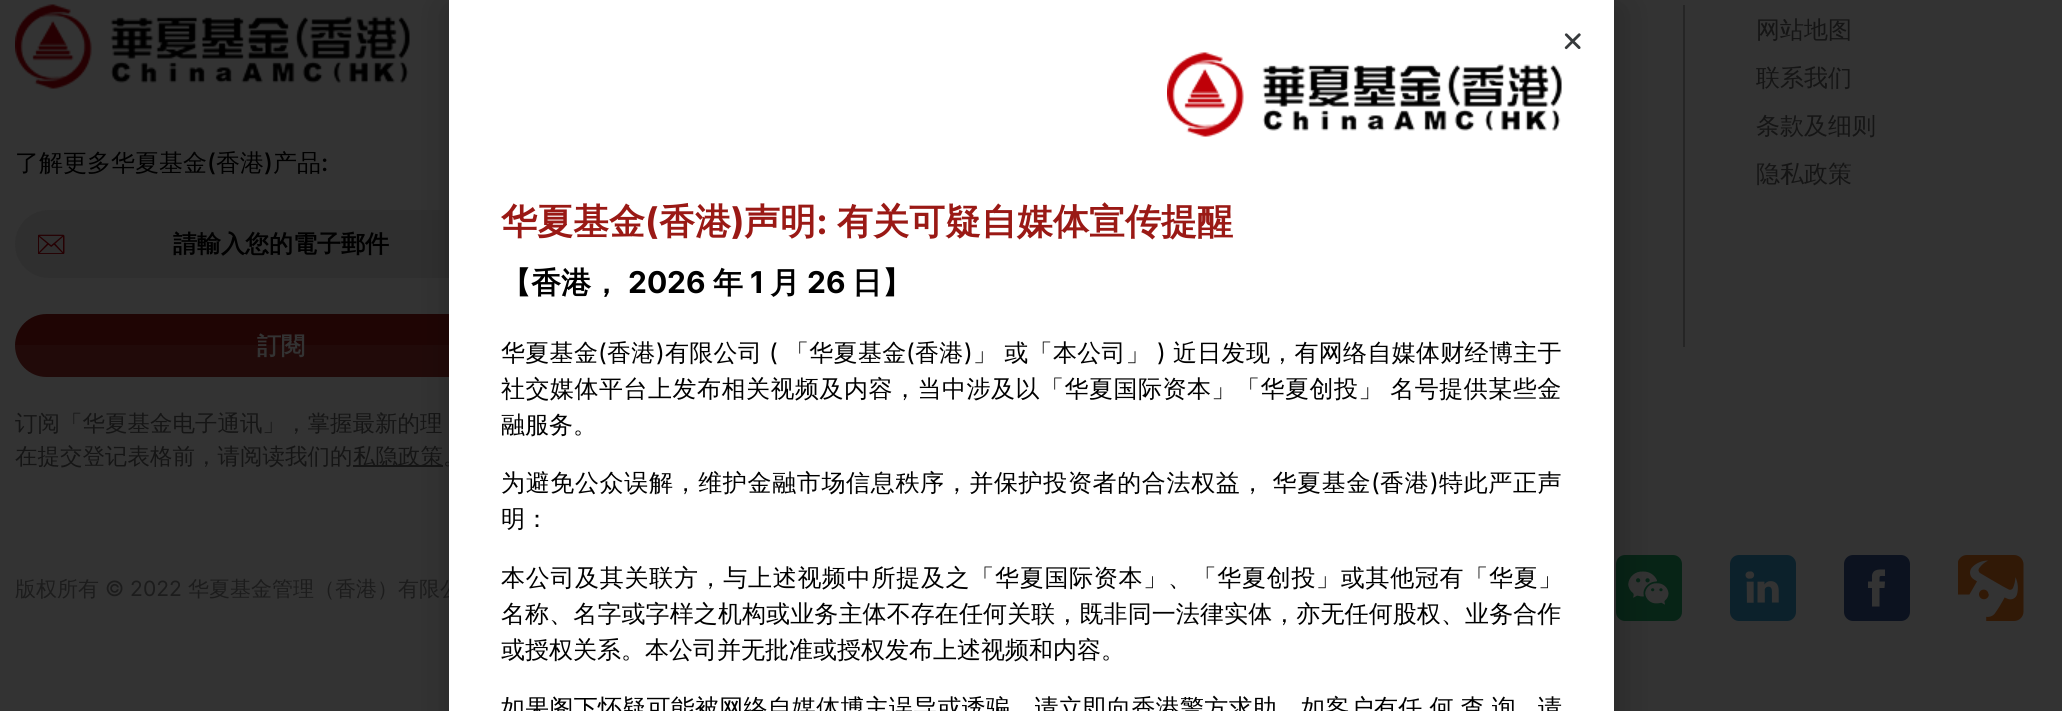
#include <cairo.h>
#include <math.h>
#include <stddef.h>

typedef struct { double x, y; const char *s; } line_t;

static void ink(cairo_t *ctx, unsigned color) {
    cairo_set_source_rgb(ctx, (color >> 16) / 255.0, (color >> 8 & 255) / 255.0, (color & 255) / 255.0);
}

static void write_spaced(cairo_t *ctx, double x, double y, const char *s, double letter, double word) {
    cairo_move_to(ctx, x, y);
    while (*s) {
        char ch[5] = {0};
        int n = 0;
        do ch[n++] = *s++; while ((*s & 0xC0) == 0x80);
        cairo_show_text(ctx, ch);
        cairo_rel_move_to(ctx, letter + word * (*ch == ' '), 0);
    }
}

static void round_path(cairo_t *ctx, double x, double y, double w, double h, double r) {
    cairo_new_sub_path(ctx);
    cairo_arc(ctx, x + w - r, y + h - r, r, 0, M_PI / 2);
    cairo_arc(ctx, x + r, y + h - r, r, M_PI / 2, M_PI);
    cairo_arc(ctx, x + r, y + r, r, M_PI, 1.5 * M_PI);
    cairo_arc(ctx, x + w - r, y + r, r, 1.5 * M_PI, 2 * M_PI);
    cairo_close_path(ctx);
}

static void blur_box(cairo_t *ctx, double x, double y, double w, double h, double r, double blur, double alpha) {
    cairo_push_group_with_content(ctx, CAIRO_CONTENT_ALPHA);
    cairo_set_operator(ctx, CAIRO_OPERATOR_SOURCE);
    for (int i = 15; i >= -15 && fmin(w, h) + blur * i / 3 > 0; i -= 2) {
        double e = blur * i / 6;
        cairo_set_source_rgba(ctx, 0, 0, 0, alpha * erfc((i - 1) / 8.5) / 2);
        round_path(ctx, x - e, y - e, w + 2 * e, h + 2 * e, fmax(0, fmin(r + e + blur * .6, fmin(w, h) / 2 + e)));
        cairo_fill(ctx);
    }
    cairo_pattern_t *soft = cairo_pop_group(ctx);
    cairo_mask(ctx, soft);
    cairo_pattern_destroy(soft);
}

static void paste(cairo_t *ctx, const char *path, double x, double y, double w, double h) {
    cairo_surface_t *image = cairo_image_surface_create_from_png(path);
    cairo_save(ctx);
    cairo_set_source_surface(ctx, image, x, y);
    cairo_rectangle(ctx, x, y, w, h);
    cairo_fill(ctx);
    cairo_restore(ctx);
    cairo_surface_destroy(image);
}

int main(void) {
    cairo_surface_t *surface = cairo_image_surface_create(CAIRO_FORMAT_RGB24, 2062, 711);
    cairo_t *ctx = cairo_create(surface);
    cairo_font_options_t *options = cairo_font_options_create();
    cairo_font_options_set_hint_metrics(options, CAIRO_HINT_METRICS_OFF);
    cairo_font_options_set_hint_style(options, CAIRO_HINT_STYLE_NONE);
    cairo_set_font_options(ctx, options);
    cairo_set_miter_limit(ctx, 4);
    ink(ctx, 0x333333);
    cairo_paint(ctx);
    ink(ctx, 0x252525);
    cairo_rectangle(ctx, 1683, 5, 2, 342);
    cairo_fill(ctx);
    cairo_select_font_face(ctx, "WenQuanYi Zen Hei Medium", CAIRO_FONT_SLANT_NORMAL, CAIRO_FONT_WEIGHT_NORMAL);
    cairo_set_font_size(ctx, 24);
    ink(ctx, 0x151515);
    {
        static const line_t items[] = {
            {1756, 38, "网站地图"},
            {1756, 86, "联系我们"},
            {1756, 134, "条款及细则"},
            {1756, 182, "隐私政策"},
        };
        for (size_t i = 0; i < sizeof items / sizeof *items; i++) {
            cairo_move_to(ctx, items[i].x, items[i].y);
            cairo_show_text(ctx, items[i].s);
        }
    }
    paste(ctx, "media/1.png", 15, 4, 395, 85);
    ink(ctx, 0x000000);
    cairo_move_to(ctx, 15, 171);
    cairo_show_text(ctx, "了解更多华夏基金");
    cairo_select_font_face(ctx, "Inter Medium", CAIRO_FONT_SLANT_NORMAL, CAIRO_FONT_WEIGHT_NORMAL);
    cairo_move_to(ctx, 207, 171);
    cairo_show_text(ctx, "(");
    cairo_select_font_face(ctx, "WenQuanYi Zen Hei Medium", CAIRO_FONT_SLANT_NORMAL, CAIRO_FONT_WEIGHT_NORMAL);
    cairo_move_to(ctx, 216, 171);
    cairo_show_text(ctx, "香港");
    cairo_select_font_face(ctx, "Inter Medium", CAIRO_FONT_SLANT_NORMAL, CAIRO_FONT_WEIGHT_NORMAL);
    cairo_move_to(ctx, 264, 171);
    cairo_show_text(ctx, ")");
    cairo_select_font_face(ctx, "WenQuanYi Zen Hei Medium", CAIRO_FONT_SLANT_NORMAL, CAIRO_FONT_WEIGHT_NORMAL);
    cairo_move_to(ctx, 273, 171);
    cairo_show_text(ctx, "产品");
    cairo_select_font_face(ctx, "Inter Medium", CAIRO_FONT_SLANT_NORMAL, CAIRO_FONT_WEIGHT_NORMAL);
    cairo_move_to(ctx, 321, 171);
    cairo_show_text(ctx, ":");
    ink(ctx, 0x2F2F2F);
    round_path(ctx, 15, 210, 533, 68, 34);
    cairo_fill(ctx);
    paste(ctx, "media/2.png", 38, 234, 27, 20);
    cairo_select_font_face(ctx, "WenQuanYi Zen Hei", CAIRO_FONT_SLANT_NORMAL, CAIRO_FONT_WEIGHT_BOLD);
    ink(ctx, 0x000000);
    cairo_move_to(ctx, 173, 252);
    cairo_show_text(ctx, "請輸入您的電子郵件");
    cairo_save(ctx);
    round_path(ctx, 15, 314, 533, 63, 31.5);
    cairo_clip(ctx);
    ink(ctx, 0x1F0504);
    cairo_rectangle(ctx, 15, 314, 434, 31);
    cairo_fill(ctx);
    ink(ctx, 0x210A09);
    cairo_new_path(ctx);
    cairo_move_to(ctx, 15, 345);
    cairo_line_to(ctx, 548, 345);
    cairo_line_to(ctx, 548, 345.5);
    cairo_curve_to(ctx, 548, 363, 534, 377, 516.5, 377);
    cairo_line_to(ctx, 46.5, 377);
    cairo_curve_to(ctx, 29, 377, 15, 363, 15, 345.5);
    cairo_close_path(ctx);
    cairo_fill(ctx);
    cairo_restore(ctx);
    ink(ctx, 0x333333);
    cairo_move_to(ctx, 257, 354);
    cairo_show_text(ctx, "訂閱");
    cairo_select_font_face(ctx, "WenQuanYi Zen Hei Medium", CAIRO_FONT_SLANT_NORMAL, CAIRO_FONT_WEIGHT_NORMAL);
    cairo_set_font_size(ctx, 22.5);
    ink(ctx, 0x151515);
    cairo_move_to(ctx, 15, 431);
    cairo_show_text(ctx, "订阅「华夏基金电子通讯」，掌握最新的理");
    cairo_move_to(ctx, 15, 464);
    cairo_show_text(ctx, "在提交登记表格前，请阅读我们的");
    cairo_rectangle(ctx, 353, 465, 90, 2);
    cairo_fill(ctx);
    cairo_move_to(ctx, 353, 464);
    cairo_show_text(ctx, "私隐政策。");
    cairo_set_font_size(ctx, 21);
    ink(ctx, 0x1C1C1C);
    cairo_move_to(ctx, 15, 596);
    cairo_show_text(ctx, "版权所有");
    cairo_select_font_face(ctx, "Inter", CAIRO_FONT_SLANT_NORMAL, CAIRO_FONT_WEIGHT_NORMAL);
    cairo_move_to(ctx, 105, 596);
    cairo_show_text(ctx, "© 2022");
    cairo_select_font_face(ctx, "WenQuanYi Zen Hei Medium", CAIRO_FONT_SLANT_NORMAL, CAIRO_FONT_WEIGHT_NORMAL);
    cairo_move_to(ctx, 188, 596);
    cairo_show_text(ctx, "华夏基金管理（香港）有限公");
    paste(ctx, "media/3.png", 1616, 555, 66, 66);
    paste(ctx, "media/4.png", 1730, 555, 66, 66);
    ink(ctx, 0x0C121F);
    round_path(ctx, 1844, 555, 66, 66, 9);
    cairo_fill(ctx);
    ink(ctx, 0x333333);
    cairo_new_path(ctx);
    cairo_move_to(ctx, 1884.5, 588);
    cairo_line_to(ctx, 1879.5, 588);
    cairo_line_to(ctx, 1879.5, 606.5);
    cairo_line_to(ctx, 1872, 606.5);
    cairo_line_to(ctx, 1872, 588);
    cairo_line_to(ctx, 1868, 588);
    cairo_line_to(ctx, 1868, 581.5);
    cairo_line_to(ctx, 1872, 581.5);
    cairo_line_to(ctx, 1872, 575.5);
    cairo_curve_to(ctx, 1873, 568.5, 1880, 569.5, 1885, 569.5);
    cairo_line_to(ctx, 1885, 576);
    cairo_curve_to(ctx, 1879, 576, 1879.5, 575, 1879.5, 581.5);
    cairo_line_to(ctx, 1885, 581.5);
    cairo_close_path(ctx);
    cairo_fill(ctx);
    paste(ctx, "media/5.png", 1958, 555, 66, 66);
    ink(ctx, 0x000000);
    blur_box(ctx, 447, 8, 1175, 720, 0, 17, 0.2);
    ink(ctx, 0xFFFFFF);
    cairo_rectangle(ctx, 449, 0, 1165, 711);
    cairo_fill(ctx);
    paste(ctx, "media/6.png", 1564, 33, 17, 17);
    paste(ctx, "media/7.png", 1167, 52, 395, 85);
    cairo_select_font_face(ctx, "WenQuanYi Zen Hei", CAIRO_FONT_SLANT_NORMAL, CAIRO_FONT_WEIGHT_BOLD);
    cairo_set_font_size(ctx, 36);
    ink(ctx, 0x9A1915);
    cairo_move_to(ctx, 501, 234);
    cairo_show_text(ctx, "华夏基金");
    cairo_select_font_face(ctx, "Inter", CAIRO_FONT_SLANT_NORMAL, CAIRO_FONT_WEIGHT_BOLD);
    cairo_move_to(ctx, 645, 234);
    cairo_show_text(ctx, "(");
    cairo_select_font_face(ctx, "WenQuanYi Zen Hei", CAIRO_FONT_SLANT_NORMAL, CAIRO_FONT_WEIGHT_BOLD);
    cairo_move_to(ctx, 659, 234);
    cairo_show_text(ctx, "香港");
    cairo_select_font_face(ctx, "Inter", CAIRO_FONT_SLANT_NORMAL, CAIRO_FONT_WEIGHT_BOLD);
    cairo_move_to(ctx, 731, 234);
    cairo_show_text(ctx, ")");
    cairo_select_font_face(ctx, "WenQuanYi Zen Hei", CAIRO_FONT_SLANT_NORMAL, CAIRO_FONT_WEIGHT_BOLD);
    cairo_move_to(ctx, 744, 234);
    cairo_show_text(ctx, "声明");
    cairo_select_font_face(ctx, "Inter", CAIRO_FONT_SLANT_NORMAL, CAIRO_FONT_WEIGHT_BOLD);
    cairo_move_to(ctx, 816, 234);
    cairo_show_text(ctx, ":");
    cairo_select_font_face(ctx, "WenQuanYi Zen Hei", CAIRO_FONT_SLANT_NORMAL, CAIRO_FONT_WEIGHT_BOLD);
    cairo_move_to(ctx, 837, 234);
    cairo_show_text(ctx, "有关可疑自媒体宣传提醒");
    cairo_set_font_size(ctx, 30);
    ink(ctx, 0x000000);
    cairo_move_to(ctx, 501, 293);
    cairo_show_text(ctx, "【香港，");
    cairo_select_font_face(ctx, "Inter", CAIRO_FONT_SLANT_NORMAL, CAIRO_FONT_WEIGHT_BOLD);
    cairo_move_to(ctx, 628, 293);
    cairo_show_text(ctx, "2026");
    cairo_select_font_face(ctx, "WenQuanYi Zen Hei", CAIRO_FONT_SLANT_NORMAL, CAIRO_FONT_WEIGHT_BOLD);
    cairo_move_to(ctx, 713, 293);
    cairo_show_text(ctx, "年");
    cairo_select_font_face(ctx, "Inter", CAIRO_FONT_SLANT_NORMAL, CAIRO_FONT_WEIGHT_BOLD);
    cairo_move_to(ctx, 750, 293);
    cairo_show_text(ctx, "1");
    cairo_select_font_face(ctx, "WenQuanYi Zen Hei", CAIRO_FONT_SLANT_NORMAL, CAIRO_FONT_WEIGHT_BOLD);
    cairo_move_to(ctx, 770, 293);
    cairo_show_text(ctx, "月");
    cairo_select_font_face(ctx, "Inter", CAIRO_FONT_SLANT_NORMAL, CAIRO_FONT_WEIGHT_BOLD);
    cairo_move_to(ctx, 807, 293);
    cairo_show_text(ctx, "26");
    cairo_select_font_face(ctx, "WenQuanYi Zen Hei", CAIRO_FONT_SLANT_NORMAL, CAIRO_FONT_WEIGHT_BOLD);
    cairo_move_to(ctx, 852, 293);
    cairo_show_text(ctx, "日】");
    cairo_select_font_face(ctx, "WenQuanYi Zen Hei Medium", CAIRO_FONT_SLANT_NORMAL, CAIRO_FONT_WEIGHT_NORMAL);
    cairo_set_font_size(ctx, 24);
    write_spaced(ctx, 501, 361, "华夏基金", 0.3, 0);
    cairo_select_font_face(ctx, "Inter", CAIRO_FONT_SLANT_NORMAL, CAIRO_FONT_WEIGHT_NORMAL);
    write_spaced(ctx, 598, 361, "(", 0.3, 0);
    cairo_select_font_face(ctx, "WenQuanYi Zen Hei Medium", CAIRO_FONT_SLANT_NORMAL, CAIRO_FONT_WEIGHT_NORMAL);
    write_spaced(ctx, 607, 361, "香港", 0.3, 0);
    cairo_select_font_face(ctx, "Inter", CAIRO_FONT_SLANT_NORMAL, CAIRO_FONT_WEIGHT_NORMAL);
    write_spaced(ctx, 656, 361, ")", 0.3, 0);
    cairo_select_font_face(ctx, "WenQuanYi Zen Hei Medium", CAIRO_FONT_SLANT_NORMAL, CAIRO_FONT_WEIGHT_NORMAL);
    write_spaced(ctx, 665, 361, "有限公司", 0.3, 0);
    cairo_select_font_face(ctx, "Inter", CAIRO_FONT_SLANT_NORMAL, CAIRO_FONT_WEIGHT_NORMAL);
    write_spaced(ctx, 769, 361, "(", 0.3, 0);
    cairo_select_font_face(ctx, "WenQuanYi Zen Hei Medium", CAIRO_FONT_SLANT_NORMAL, CAIRO_FONT_WEIGHT_NORMAL);
    write_spaced(ctx, 785, 361, "「华夏基金", 0.3, 0);
    cairo_select_font_face(ctx, "Inter", CAIRO_FONT_SLANT_NORMAL, CAIRO_FONT_WEIGHT_NORMAL);
    write_spaced(ctx, 906, 361, "(", 0.3, 0);
    cairo_select_font_face(ctx, "WenQuanYi Zen Hei Medium", CAIRO_FONT_SLANT_NORMAL, CAIRO_FONT_WEIGHT_NORMAL);
    write_spaced(ctx, 915, 361, "香港", 0.3, 0);
    cairo_select_font_face(ctx, "Inter", CAIRO_FONT_SLANT_NORMAL, CAIRO_FONT_WEIGHT_NORMAL);
    write_spaced(ctx, 964, 361, ")", 0.3, 0);
    cairo_select_font_face(ctx, "WenQuanYi Zen Hei Medium", CAIRO_FONT_SLANT_NORMAL, CAIRO_FONT_WEIGHT_NORMAL);
    write_spaced(ctx, 973, 361, "」 或「本公司」", 0.3, -0.5);
    cairo_select_font_face(ctx, "Inter", CAIRO_FONT_SLANT_NORMAL, CAIRO_FONT_WEIGHT_NORMAL);
    write_spaced(ctx, 1157, 361, ")", 0.3, 0);
    cairo_select_font_face(ctx, "WenQuanYi Zen Hei Medium", CAIRO_FONT_SLANT_NORMAL, CAIRO_FONT_WEIGHT_NORMAL);
    write_spaced(ctx, 1173, 361, "近日发现，有网络自媒体财经博主于", 0.3, 0);
    write_spaced(ctx, 501, 397, "社交媒体平台上发布相关视频及内容，当中涉及以「华夏国际资本」「华夏创投」 名号提供某些金", 0.5, -0.5);
    cairo_move_to(ctx, 501, 433);
    cairo_show_text(ctx, "融服务。");
    write_spaced(ctx, 501, 491, "为避免公众误解，维护金融市场信息秩序，并保护投资者的合法权益， 华夏基金", 0.65, -0.5);
    cairo_select_font_face(ctx, "Inter", CAIRO_FONT_SLANT_NORMAL, CAIRO_FONT_WEIGHT_NORMAL);
    write_spaced(ctx, 1371, 491, "(", 0.65, 0);
    cairo_select_font_face(ctx, "WenQuanYi Zen Hei Medium", CAIRO_FONT_SLANT_NORMAL, CAIRO_FONT_WEIGHT_NORMAL);
    write_spaced(ctx, 1380, 491, "香港", 0.65, 0);
    cairo_select_font_face(ctx, "Inter", CAIRO_FONT_SLANT_NORMAL, CAIRO_FONT_WEIGHT_NORMAL);
    write_spaced(ctx, 1430, 491, ")", 0.65, 0);
    cairo_select_font_face(ctx, "WenQuanYi Zen Hei Medium", CAIRO_FONT_SLANT_NORMAL, CAIRO_FONT_WEIGHT_NORMAL);
    write_spaced(ctx, 1439, 491, "特此严正声", 0.65, 0);
    cairo_move_to(ctx, 501, 527);
    cairo_show_text(ctx, "明：");
    write_spaced(ctx, 501, 586, "本公司及其关联方，与上述视频中所提及之「华夏国际资本」、「华夏创投」或其他冠有「华夏」", 0.7, 0);
    write_spaced(ctx, 501, 622, "名称、名字或字样之机构或业务主体不存在任何关联，既非同一法律实体，亦无任何股权、业务合作", 0.1, 0);
    cairo_move_to(ctx, 501, 658);
    cairo_show_text(ctx, "或授权关系。本公司并无批准或授权发布上述视频和内容。");
    write_spaced(ctx, 501, 716, "如果阁下怀疑可能被网络自媒体博主误导或诱骗，请立即向香港警方求助。如客户有任 何 查 询", 0.25, -0.5);
    write_spaced(ctx, 1538, 716, "请", 0.25, 0);
    cairo_surface_write_to_png(surface, "image.png");
    cairo_font_options_destroy(options);
    cairo_destroy(ctx);
    cairo_surface_destroy(surface);
    return 0;
}
